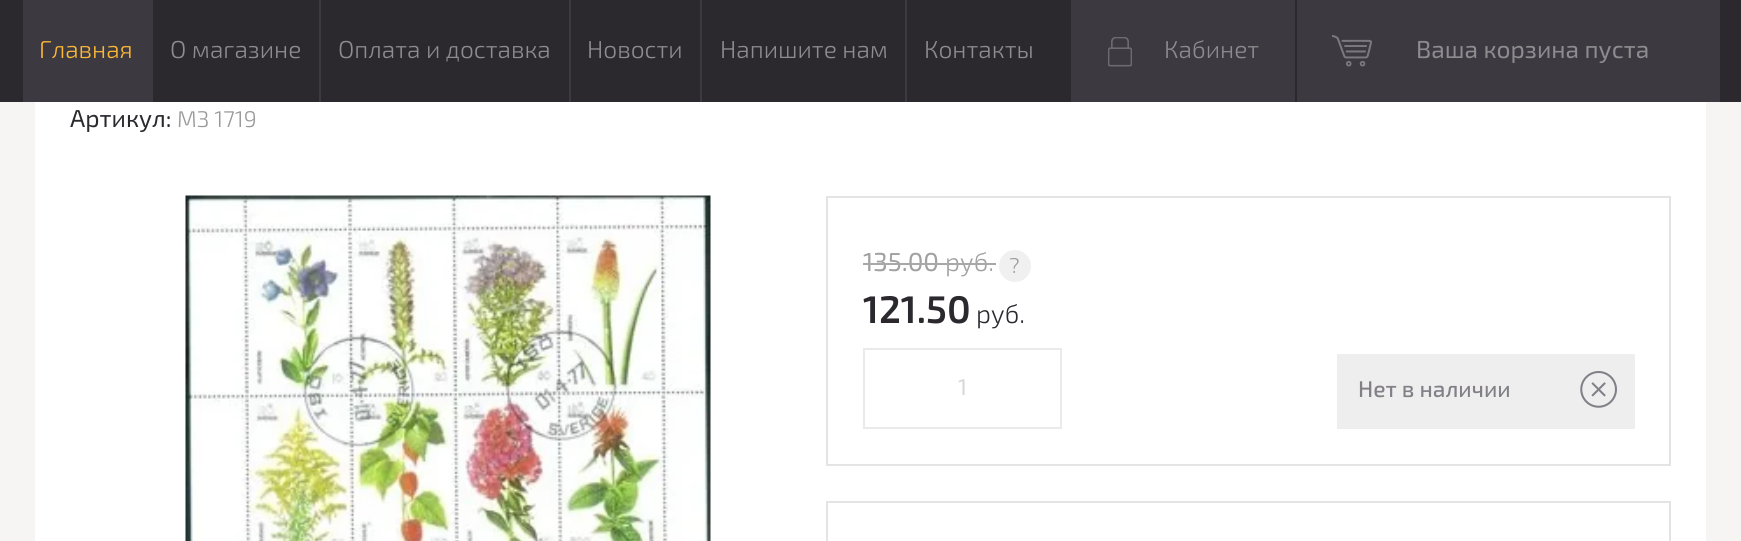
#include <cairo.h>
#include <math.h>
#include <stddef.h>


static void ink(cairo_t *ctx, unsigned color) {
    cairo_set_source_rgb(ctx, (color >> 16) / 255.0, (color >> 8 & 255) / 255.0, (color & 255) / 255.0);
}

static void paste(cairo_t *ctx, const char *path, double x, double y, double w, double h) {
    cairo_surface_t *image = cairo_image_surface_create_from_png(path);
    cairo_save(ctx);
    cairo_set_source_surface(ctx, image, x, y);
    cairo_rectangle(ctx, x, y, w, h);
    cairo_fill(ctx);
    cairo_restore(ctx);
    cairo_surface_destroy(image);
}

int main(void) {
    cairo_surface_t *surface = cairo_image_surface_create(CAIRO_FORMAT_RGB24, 1741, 541);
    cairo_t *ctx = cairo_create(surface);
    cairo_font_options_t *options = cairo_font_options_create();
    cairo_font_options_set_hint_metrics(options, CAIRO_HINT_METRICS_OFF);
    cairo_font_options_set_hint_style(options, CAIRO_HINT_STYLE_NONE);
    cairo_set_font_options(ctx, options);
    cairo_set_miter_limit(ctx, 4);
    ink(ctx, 0xF7F4F4);
    cairo_paint(ctx);
    ink(ctx, 0x2B292E);
    cairo_rectangle(ctx, 0, 0, 1741, 102);
    cairo_fill(ctx);
    ink(ctx, 0x3C3940);
    cairo_rectangle(ctx, 23, 0, 130, 102);
    cairo_fill(ctx);
    cairo_select_font_face(ctx, "Exo 2 Light", CAIRO_FONT_SLANT_NORMAL, CAIRO_FONT_WEIGHT_NORMAL);
    cairo_set_font_size(ctx, 24.5);
    ink(ctx, 0xFCB938);
    cairo_move_to(ctx, 39, 58);
    cairo_show_text(ctx, "Главная");
    ink(ctx, 0x8D8C8F);
    cairo_move_to(ctx, 170, 58);
    cairo_show_text(ctx, "О магазине");
    ink(ctx, 0x3C3940);
    cairo_rectangle(ctx, 319, 0, 2, 102);
    cairo_fill(ctx);
    ink(ctx, 0x8D8C8F);
    cairo_move_to(ctx, 338, 58);
    cairo_show_text(ctx, "Оплата и доставка");
    ink(ctx, 0x3C3940);
    cairo_rectangle(ctx, 569, 0, 2, 102);
    cairo_fill(ctx);
    ink(ctx, 0x8D8C8F);
    cairo_move_to(ctx, 587, 58);
    cairo_show_text(ctx, "Новости");
    ink(ctx, 0x3C3940);
    cairo_rectangle(ctx, 700, 0, 2, 102);
    cairo_fill(ctx);
    ink(ctx, 0x8D8C8F);
    cairo_move_to(ctx, 720, 58);
    cairo_show_text(ctx, "Напишите нам");
    ink(ctx, 0x3C3940);
    cairo_rectangle(ctx, 905, 0, 2, 102);
    cairo_fill(ctx);
    ink(ctx, 0x8D8C8F);
    cairo_move_to(ctx, 924, 58);
    cairo_show_text(ctx, "Контакты");
    ink(ctx, 0x3C3940);
    cairo_rectangle(ctx, 1071, 0, 224, 102);
    cairo_fill(ctx);
    paste(ctx, "media/1.png", 1108, 37, 24, 30);
    ink(ctx, 0x8D8C8F);
    cairo_move_to(ctx, 1164, 58);
    cairo_show_text(ctx, "Кабинет");
    ink(ctx, 0x3C3940);
    cairo_rectangle(ctx, 1297, 0, 423, 102);
    cairo_fill(ctx);
    paste(ctx, "media/2.png", 1332, 35, 40, 32);
    cairo_select_font_face(ctx, "Exo 2", CAIRO_FONT_SLANT_NORMAL, CAIRO_FONT_WEIGHT_NORMAL);
    ink(ctx, 0x8D8C8F);
    cairo_move_to(ctx, 1416, 58);
    cairo_show_text(ctx, "Ваша корзина пуста");
    ink(ctx, 0xFFFFFF);
    cairo_rectangle(ctx, 35, 102, 1671, 439);
    cairo_fill(ctx);
    ink(ctx, 0x2B292E);
    cairo_move_to(ctx, 70, 127);
    cairo_show_text(ctx, "Артикул:");
    cairo_select_font_face(ctx, "Exo 2 Light", CAIRO_FONT_SLANT_NORMAL, CAIRO_FONT_WEIGHT_NORMAL);
    cairo_set_font_size(ctx, 22.75);
    ink(ctx, 0x999999);
    cairo_move_to(ctx, 177, 127);
    cairo_show_text(ctx, "МЗ 1719");
    paste(ctx, "media/3.png", 185, 195, 526, 346);
    cairo_rectangle(ctx, 827, 197, 843, 268);
    ink(ctx, 0xE4E4E4);
    cairo_stroke(ctx);
    cairo_select_font_face(ctx, "Exo 2", CAIRO_FONT_SLANT_NORMAL, CAIRO_FONT_WEIGHT_NORMAL);
    cairo_set_font_size(ctx, 26);
    ink(ctx, 0xA1A1A1);
    cairo_move_to(ctx, 863, 271);
    cairo_show_text(ctx, "135.00");
    cairo_select_font_face(ctx, "Exo 2 Light", CAIRO_FONT_SLANT_NORMAL, CAIRO_FONT_WEIGHT_NORMAL);
    cairo_move_to(ctx, 945, 271);
    cairo_show_text(ctx, "руб.");
    ink(ctx, 0xF0F0F0);
    cairo_new_path(ctx);
    cairo_arc(ctx, 1015, 266, 16, 0, 2 * M_PI);
    cairo_fill(ctx);
    cairo_set_font_size(ctx, 21);
    ink(ctx, 0x999999);
    cairo_move_to(ctx, 1009, 273);
    cairo_show_text(ctx, "?");
    ink(ctx, 0xA8A8A8);
    cairo_rectangle(ctx, 863, 263, 133, 2);
    cairo_fill(ctx);
    cairo_select_font_face(ctx, "Exo 2 SemiBold", CAIRO_FONT_SLANT_NORMAL, CAIRO_FONT_WEIGHT_NORMAL);
    cairo_set_font_size(ctx, 38.5);
    ink(ctx, 0x2B292E);
    cairo_move_to(ctx, 863, 323);
    cairo_show_text(ctx, "121.50");
    cairo_select_font_face(ctx, "Exo 2 Light", CAIRO_FONT_SLANT_NORMAL, CAIRO_FONT_WEIGHT_NORMAL);
    cairo_set_font_size(ctx, 26);
    cairo_move_to(ctx, 976, 323);
    cairo_show_text(ctx, "руб.");
    cairo_rectangle(ctx, 864, 349, 197, 79);
    ink(ctx, 0xEAEAEA);
    cairo_stroke(ctx);
    cairo_select_font_face(ctx, "Exo 2", CAIRO_FONT_SLANT_NORMAL, CAIRO_FONT_WEIGHT_NORMAL);
    cairo_set_font_size(ctx, 22.75);
    ink(ctx, 0xD6D6D6);
    cairo_move_to(ctx, 958, 395);
    cairo_show_text(ctx, "1");
    ink(ctx, 0xEEEEEE);
    cairo_rectangle(ctx, 1337, 354, 298, 75);
    cairo_fill(ctx);
    cairo_select_font_face(ctx, "Exo 2 Medium", CAIRO_FONT_SLANT_NORMAL, CAIRO_FONT_WEIGHT_NORMAL);
    ink(ctx, 0x827F87);
    cairo_move_to(ctx, 1358, 397);
    cairo_show_text(ctx, "Нет в наличии");
    paste(ctx, "media/4.png", 1580, 371, 37, 37);
    cairo_rectangle(ctx, 827, 502, 843, 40);
    ink(ctx, 0xE4E4E4);
    cairo_stroke(ctx);
    cairo_surface_write_to_png(surface, "image.png");
    cairo_font_options_destroy(options);
    cairo_destroy(ctx);
    cairo_surface_destroy(surface);
    return 0;
}
